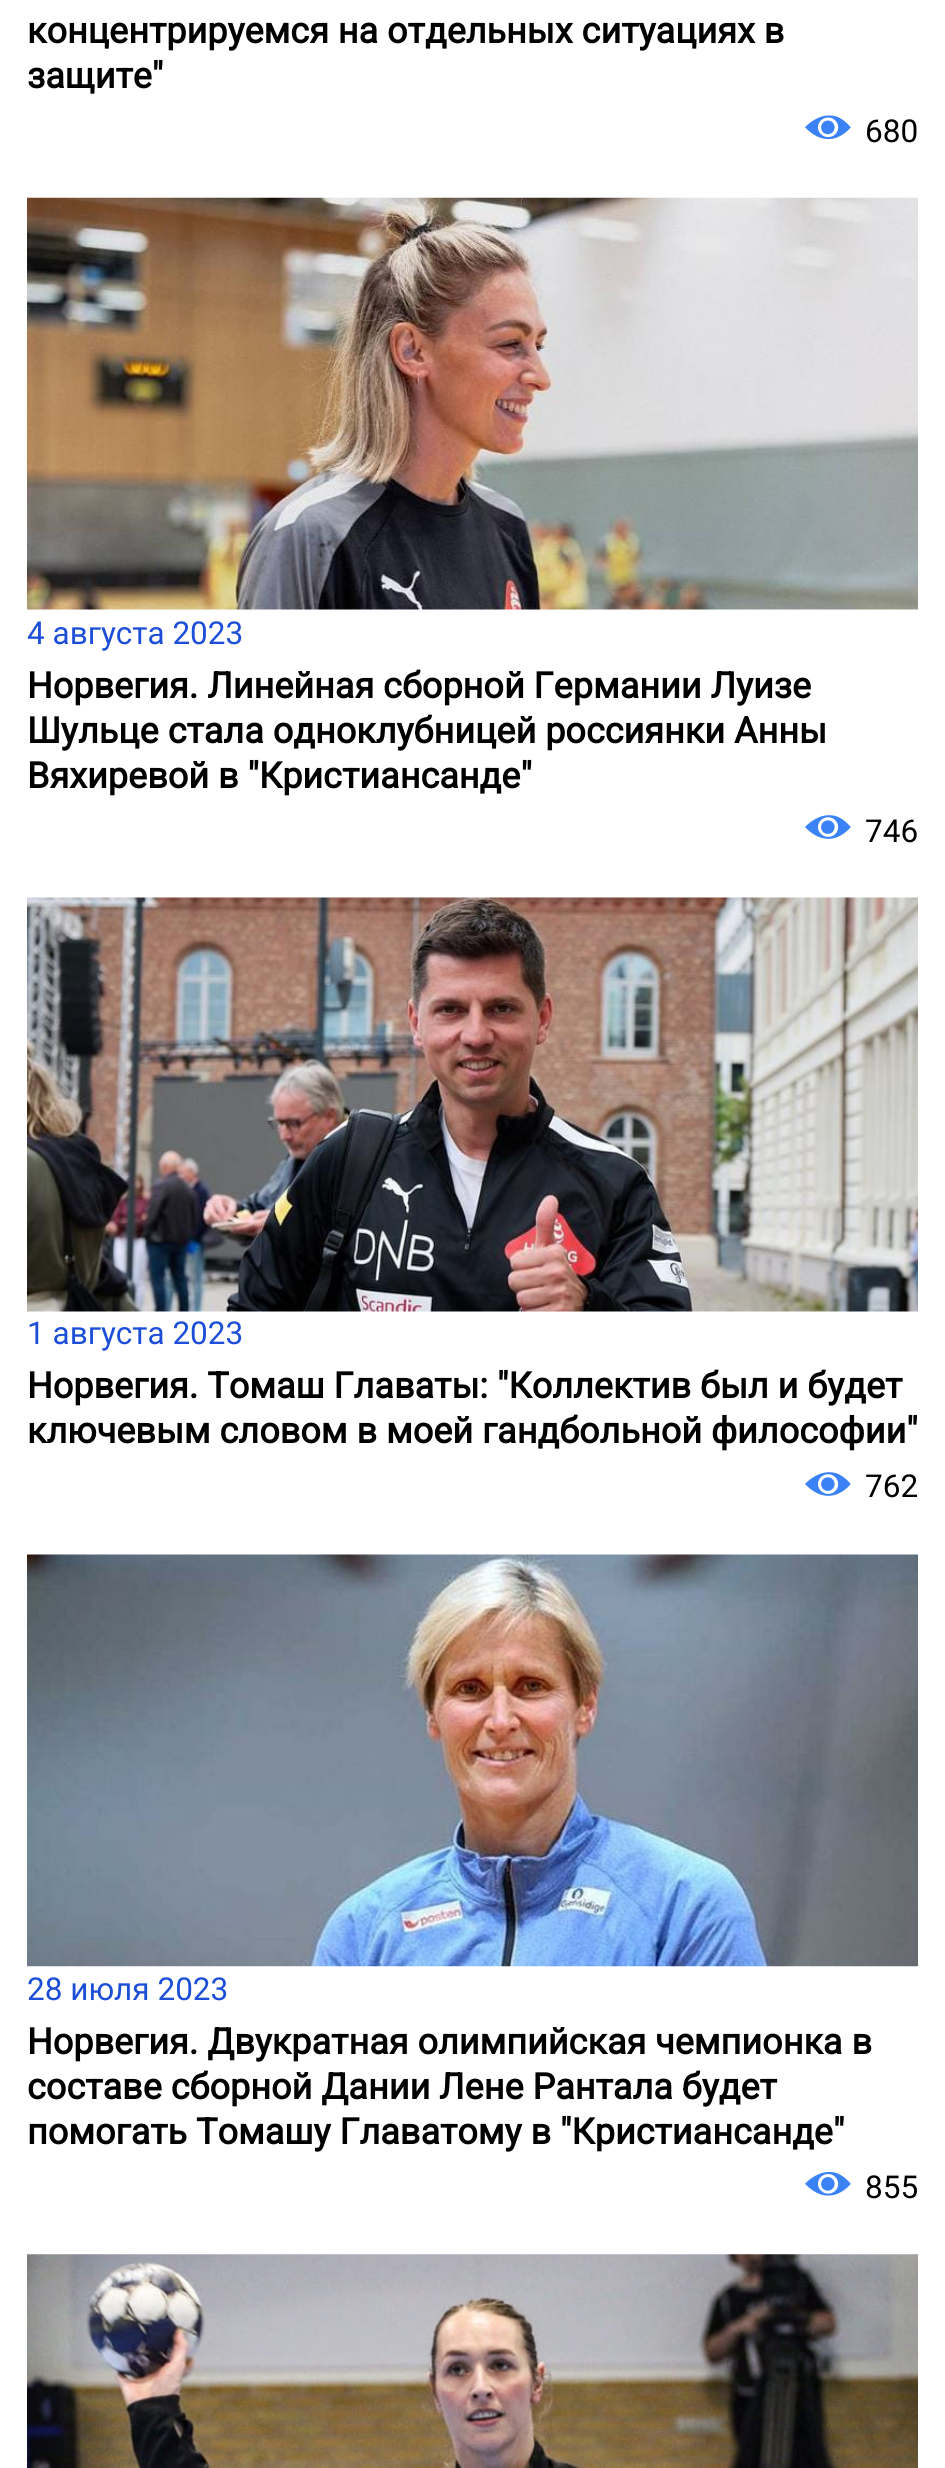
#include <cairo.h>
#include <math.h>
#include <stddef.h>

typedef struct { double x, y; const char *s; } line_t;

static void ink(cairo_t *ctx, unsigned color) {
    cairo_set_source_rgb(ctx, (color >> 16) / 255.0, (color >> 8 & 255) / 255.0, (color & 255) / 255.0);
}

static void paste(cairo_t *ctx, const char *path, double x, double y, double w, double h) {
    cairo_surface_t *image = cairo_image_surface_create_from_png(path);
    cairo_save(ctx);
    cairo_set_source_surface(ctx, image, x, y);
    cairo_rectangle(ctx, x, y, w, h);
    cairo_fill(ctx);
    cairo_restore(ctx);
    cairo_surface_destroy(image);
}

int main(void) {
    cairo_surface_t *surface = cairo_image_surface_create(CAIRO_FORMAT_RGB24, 945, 2468);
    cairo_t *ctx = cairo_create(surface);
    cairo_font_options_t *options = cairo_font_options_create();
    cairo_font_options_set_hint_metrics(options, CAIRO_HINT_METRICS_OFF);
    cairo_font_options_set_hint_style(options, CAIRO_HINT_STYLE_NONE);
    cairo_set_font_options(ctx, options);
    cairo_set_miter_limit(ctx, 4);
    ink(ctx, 0xFFFFFF);
    cairo_paint(ctx);
    cairo_select_font_face(ctx, "Roboto", CAIRO_FONT_SLANT_NORMAL, CAIRO_FONT_WEIGHT_BOLD);
    cairo_set_font_size(ctx, 36);
    ink(ctx, 0x000000);
    cairo_move_to(ctx, 27, 43);
    cairo_show_text(ctx, "концентрируемся на отдельных ситуациях в");
    cairo_move_to(ctx, 27, 88);
    cairo_show_text(ctx, "защите\"");
    paste(ctx, "media/1.png", 805, 115, 46, 25);
    cairo_select_font_face(ctx, "Roboto", CAIRO_FONT_SLANT_NORMAL, CAIRO_FONT_WEIGHT_NORMAL);
    cairo_set_font_size(ctx, 31.5);
    cairo_move_to(ctx, 865, 142);
    cairo_show_text(ctx, "680");
    paste(ctx, "media/2.png", 27, 197, 891, 413);
    ink(ctx, 0x1D4ED8);
    cairo_move_to(ctx, 27, 644);
    cairo_show_text(ctx, "4 августа 2023");
    cairo_select_font_face(ctx, "Roboto", CAIRO_FONT_SLANT_NORMAL, CAIRO_FONT_WEIGHT_BOLD);
    cairo_set_font_size(ctx, 36);
    ink(ctx, 0x000000);
    {
        static const line_t items[] = {
            {27, 698, "Норвегия. Линейная сборной Германии Луизе"},
            {27, 743, "Шульце стала одноклубницей россиянки Анны"},
            {27, 788, "Вяхиревой в \"Кристиансанде\""},
        };
        for (size_t i = 0; i < sizeof items / sizeof *items; i++) {
            cairo_move_to(ctx, items[i].x, items[i].y);
            cairo_show_text(ctx, items[i].s);
        }
    }
    paste(ctx, "media/3.png", 805, 815, 46, 24);
    cairo_select_font_face(ctx, "Roboto", CAIRO_FONT_SLANT_NORMAL, CAIRO_FONT_WEIGHT_NORMAL);
    cairo_set_font_size(ctx, 31.5);
    cairo_move_to(ctx, 865, 842);
    cairo_show_text(ctx, "746");
    paste(ctx, "media/4.png", 27, 897, 891, 415);
    ink(ctx, 0x1D4ED8);
    cairo_move_to(ctx, 27, 1344);
    cairo_show_text(ctx, "1 августа 2023");
    cairo_select_font_face(ctx, "Roboto", CAIRO_FONT_SLANT_NORMAL, CAIRO_FONT_WEIGHT_BOLD);
    cairo_set_font_size(ctx, 36);
    ink(ctx, 0x000000);
    cairo_move_to(ctx, 27, 1398);
    cairo_show_text(ctx, "Норвегия. Томаш Главаты: \"Коллектив был и будет");
    cairo_move_to(ctx, 27, 1443);
    cairo_show_text(ctx, "ключевым словом в моей гандбольной философии\"");
    paste(ctx, "media/3.png", 805, 1472, 46, 24);
    cairo_select_font_face(ctx, "Roboto", CAIRO_FONT_SLANT_NORMAL, CAIRO_FONT_WEIGHT_NORMAL);
    cairo_set_font_size(ctx, 31.5);
    cairo_move_to(ctx, 865, 1497);
    cairo_show_text(ctx, "762");
    paste(ctx, "media/5.png", 27, 1554, 891, 413);
    ink(ctx, 0x1D4ED8);
    cairo_move_to(ctx, 27, 2000);
    cairo_show_text(ctx, "28 июля 2023");
    cairo_select_font_face(ctx, "Roboto", CAIRO_FONT_SLANT_NORMAL, CAIRO_FONT_WEIGHT_BOLD);
    cairo_set_font_size(ctx, 36);
    ink(ctx, 0x000000);
    {
        static const line_t items[] = {
            {27, 2054, "Норвегия. Двукратная олимпийская чемпионка в"},
            {27, 2099, "составе сборной Дании Лене Рантала будет"},
            {27, 2144, "помогать Томашу Главатому в \"Кристиансанде\""},
        };
        for (size_t i = 0; i < sizeof items / sizeof *items; i++) {
            cairo_move_to(ctx, items[i].x, items[i].y);
            cairo_show_text(ctx, items[i].s);
        }
    }
    paste(ctx, "media/6.png", 805, 2171, 46, 25);
    cairo_select_font_face(ctx, "Roboto", CAIRO_FONT_SLANT_NORMAL, CAIRO_FONT_WEIGHT_NORMAL);
    cairo_set_font_size(ctx, 31.5);
    cairo_move_to(ctx, 865, 2198);
    cairo_show_text(ctx, "855");
    paste(ctx, "media/7.png", 27, 2254, 891, 214);
    cairo_surface_write_to_png(surface, "image.png");
    cairo_font_options_destroy(options);
    cairo_destroy(ctx);
    cairo_surface_destroy(surface);
    return 0;
}
